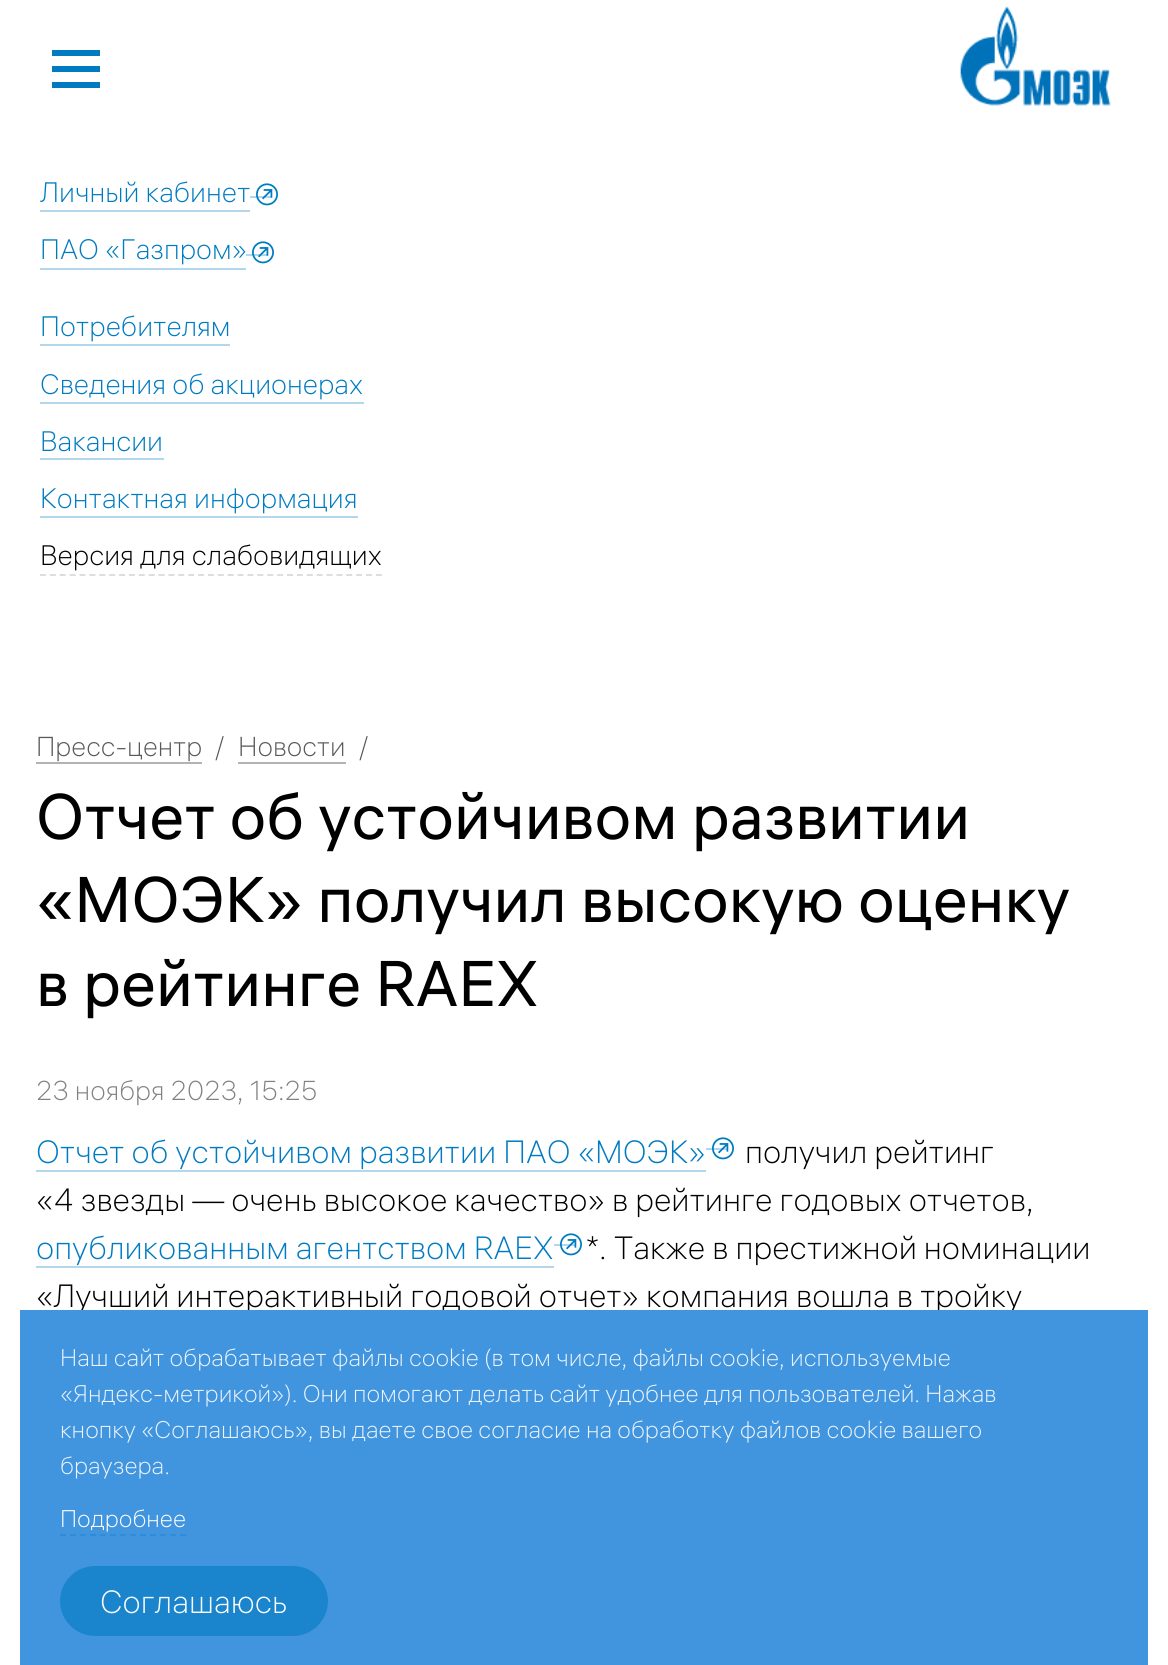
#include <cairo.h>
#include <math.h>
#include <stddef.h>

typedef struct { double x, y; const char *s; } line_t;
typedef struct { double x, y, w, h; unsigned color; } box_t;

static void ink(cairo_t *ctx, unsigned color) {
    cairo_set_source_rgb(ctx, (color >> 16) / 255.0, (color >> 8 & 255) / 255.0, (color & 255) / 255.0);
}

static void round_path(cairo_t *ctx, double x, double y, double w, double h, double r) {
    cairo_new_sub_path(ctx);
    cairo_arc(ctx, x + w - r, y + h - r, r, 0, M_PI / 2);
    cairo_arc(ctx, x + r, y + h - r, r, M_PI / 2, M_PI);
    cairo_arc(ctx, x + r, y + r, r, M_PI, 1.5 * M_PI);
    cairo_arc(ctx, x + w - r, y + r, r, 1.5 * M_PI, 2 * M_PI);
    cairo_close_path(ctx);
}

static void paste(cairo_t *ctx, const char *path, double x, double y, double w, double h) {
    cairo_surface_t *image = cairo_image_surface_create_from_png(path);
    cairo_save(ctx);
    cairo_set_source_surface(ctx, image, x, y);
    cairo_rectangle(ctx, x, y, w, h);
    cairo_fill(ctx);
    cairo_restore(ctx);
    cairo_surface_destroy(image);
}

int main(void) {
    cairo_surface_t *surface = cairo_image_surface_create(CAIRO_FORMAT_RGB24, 1168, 1665);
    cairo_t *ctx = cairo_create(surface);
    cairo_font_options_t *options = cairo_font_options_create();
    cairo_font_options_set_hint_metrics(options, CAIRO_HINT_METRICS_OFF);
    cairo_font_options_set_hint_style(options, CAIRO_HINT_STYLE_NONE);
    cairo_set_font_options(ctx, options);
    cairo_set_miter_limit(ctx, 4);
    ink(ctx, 0xFFFFFF);
    cairo_paint(ctx);
    {
        static const box_t items[] = {
            {52, 50, 48, 6, 0x007BC1},
            {52, 66, 48, 6, 0x007BC1},
            {52, 82, 48, 6, 0x007BC1},
        };
        for (size_t i = 0; i < sizeof items / sizeof *items; i++) {
            ink(ctx, items[i].color);
            cairo_rectangle(ctx, items[i].x, items[i].y, items[i].w, items[i].h);
            cairo_fill(ctx);
        }
    }
    paste(ctx, "media/1.png", 960, 6, 151, 100);
    ink(ctx, 0xB3D7EC);
    cairo_rectangle(ctx, 40, 210, 210, 2);
    cairo_fill(ctx);
    cairo_rectangle(ctx, 250, 196, 22, 2);
    cairo_fill(ctx);
    cairo_select_font_face(ctx, "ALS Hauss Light", CAIRO_FONT_SLANT_NORMAL, CAIRO_FONT_WEIGHT_NORMAL);
    cairo_set_font_size(ctx, 28);
    ink(ctx, 0x007BC1);
    cairo_move_to(ctx, 40, 202);
    cairo_show_text(ctx, "Личный кабинет");
    paste(ctx, "media/2.png", 256, 183, 22, 23);
    ink(ctx, 0xB3D7EC);
    cairo_rectangle(ctx, 40, 268, 206, 2);
    cairo_fill(ctx);
    cairo_rectangle(ctx, 246, 254, 22, 2);
    cairo_fill(ctx);
    ink(ctx, 0x007BC1);
    cairo_move_to(ctx, 40, 259);
    cairo_show_text(ctx, "ПАО «Газпром»");
    paste(ctx, "media/2.png", 252, 241, 22, 23);
    cairo_move_to(ctx, 40, 336);
    cairo_show_text(ctx, "Потребителям");
    ink(ctx, 0xB3D7EC);
    cairo_rectangle(ctx, 40, 344, 190, 2);
    cairo_fill(ctx);
    ink(ctx, 0x007BC1);
    cairo_move_to(ctx, 40, 394);
    cairo_show_text(ctx, "Сведения об акционерах");
    ink(ctx, 0xB3D7EC);
    cairo_rectangle(ctx, 40, 402, 324, 2);
    cairo_fill(ctx);
    ink(ctx, 0x007BC1);
    cairo_move_to(ctx, 40, 451);
    cairo_show_text(ctx, "Вакансии");
    ink(ctx, 0xB3D7EC);
    cairo_rectangle(ctx, 40, 458, 124, 2);
    cairo_fill(ctx);
    ink(ctx, 0x007BC1);
    cairo_move_to(ctx, 40, 508);
    cairo_show_text(ctx, "Контактная информация");
    ink(ctx, 0xB3D7EC);
    cairo_rectangle(ctx, 40, 516, 318, 2);
    cairo_fill(ctx);
    ink(ctx, 0x000000);
    cairo_move_to(ctx, 40, 565);
    cairo_show_text(ctx, "Версия для слабовидящих");
    cairo_new_path(ctx);
    cairo_move_to(ctx, 40, 575);
    cairo_line_to(ctx, 382, 575);
    ink(ctx, 0xDDDDDD);
    cairo_set_dash(ctx, (double[]){6, 3.88}, 2, 0);
    cairo_stroke(ctx);
    cairo_set_font_size(ctx, 27.25);
    ink(ctx, 0x595959);
    cairo_move_to(ctx, 36, 756);
    cairo_show_text(ctx, "Пресс-центр");
    ink(ctx, 0xB3B3B3);
    cairo_rectangle(ctx, 36, 762, 166, 2);
    cairo_fill(ctx);
    ink(ctx, 0x595959);
    cairo_move_to(ctx, 215, 756);
    cairo_show_text(ctx, "/");
    cairo_move_to(ctx, 238, 756);
    cairo_show_text(ctx, "Новости");
    ink(ctx, 0xB3B3B3);
    cairo_rectangle(ctx, 238, 762, 108, 2);
    cairo_fill(ctx);
    ink(ctx, 0x595959);
    cairo_move_to(ctx, 359, 756);
    cairo_show_text(ctx, "/");
    cairo_select_font_face(ctx, "ALS Hauss", CAIRO_FONT_SLANT_NORMAL, CAIRO_FONT_WEIGHT_NORMAL);
    cairo_set_font_size(ctx, 64);
    ink(ctx, 0x000000);
    {
        static const line_t items[] = {
            {36, 839, "Отчет об устойчивом развитии"},
            {36, 922, "«МОЭК» получил высокую оценку"},
            {36, 1006, "в рейтинге RAEX"},
        };
        for (size_t i = 0; i < sizeof items / sizeof *items; i++) {
            cairo_move_to(ctx, items[i].x, items[i].y);
            cairo_show_text(ctx, items[i].s);
        }
    }
    cairo_select_font_face(ctx, "ALS Hauss Light", CAIRO_FONT_SLANT_NORMAL, CAIRO_FONT_WEIGHT_NORMAL);
    cairo_set_font_size(ctx, 27.25);
    ink(ctx, 0x828282);
    cairo_move_to(ctx, 36, 1100);
    cairo_show_text(ctx, "23 ноября 2023, 15:25");
    ink(ctx, 0xB3D7EC);
    cairo_rectangle(ctx, 36, 1170, 670, 2);
    cairo_fill(ctx);
    cairo_rectangle(ctx, 706, 1148, 22, 2);
    cairo_fill(ctx);
    cairo_set_font_size(ctx, 32);
    ink(ctx, 0x007BC1);
    cairo_move_to(ctx, 36, 1163);
    cairo_show_text(ctx, "Отчет об устойчивом развитии ПАО «МОЭК»");
    paste(ctx, "media/3.png", 712, 1137, 22, 23);
    ink(ctx, 0x000000);
    cairo_move_to(ctx, 745, 1163);
    cairo_show_text(ctx, "получил рейтинг");
    cairo_move_to(ctx, 36, 1211);
    cairo_show_text(ctx, "«4 звезды — очень высокое качество» в рейтинге годовых отчетов,");
    ink(ctx, 0xB3D7EC);
    cairo_rectangle(ctx, 36, 1266, 518, 2);
    cairo_fill(ctx);
    cairo_rectangle(ctx, 554, 1244, 22, 2);
    cairo_fill(ctx);
    ink(ctx, 0x007BC1);
    cairo_move_to(ctx, 36, 1259);
    cairo_show_text(ctx, "опубликованным агентством RAEX");
    paste(ctx, "media/3.png", 560, 1233, 22, 23);
    ink(ctx, 0x000000);
    cairo_move_to(ctx, 586, 1259);
    cairo_show_text(ctx, "*. Также в престижной номинации");
    cairo_move_to(ctx, 36, 1307);
    cairo_show_text(ctx, "«Лучший интерактивный годовой отчет» компания вошла в тройку");
    ink(ctx, 0x4195DF);
    cairo_rectangle(ctx, 20, 1310, 1128, 355);
    cairo_fill(ctx);
    cairo_set_font_size(ctx, 24);
    ink(ctx, 0xECF4FC);
    {
        static const line_t items[] = {
            {60, 1366, "Наш сайт обрабатывает файлы cookie (в том числе, файлы cookie, используемые"},
            {60, 1402, "«Яндекс-метрикой»). Они помогают делать сайт удобнее для пользователей. Нажав"},
            {60, 1438, "кнопку «Соглашаюсь», вы даете свое согласие на обработку файлов cookie вашего"},
            {60, 1474, "браузера."},
        };
        for (size_t i = 0; i < sizeof items / sizeof *items; i++) {
            cairo_move_to(ctx, items[i].x, items[i].y);
            cairo_show_text(ctx, items[i].s);
        }
    }
    ink(ctx, 0xFFFFFF);
    cairo_move_to(ctx, 60, 1527);
    cairo_show_text(ctx, "Подробнее");
    cairo_new_path(ctx);
    cairo_move_to(ctx, 60, 1535);
    cairo_line_to(ctx, 186, 1535);
    ink(ctx, 0x2E8DD6);
    cairo_set_dash(ctx, (double[]){6, 4}, 2, 0);
    cairo_stroke(ctx);
    ink(ctx, 0x1A85CD);
    round_path(ctx, 60, 1566, 268, 70, 35);
    cairo_fill(ctx);
    cairo_set_font_size(ctx, 32);
    ink(ctx, 0xFFFFFF);
    cairo_move_to(ctx, 100, 1613);
    cairo_show_text(ctx, "Соглашаюсь");
    cairo_surface_write_to_png(surface, "image.png");
    cairo_font_options_destroy(options);
    cairo_destroy(ctx);
    cairo_surface_destroy(surface);
    return 0;
}
